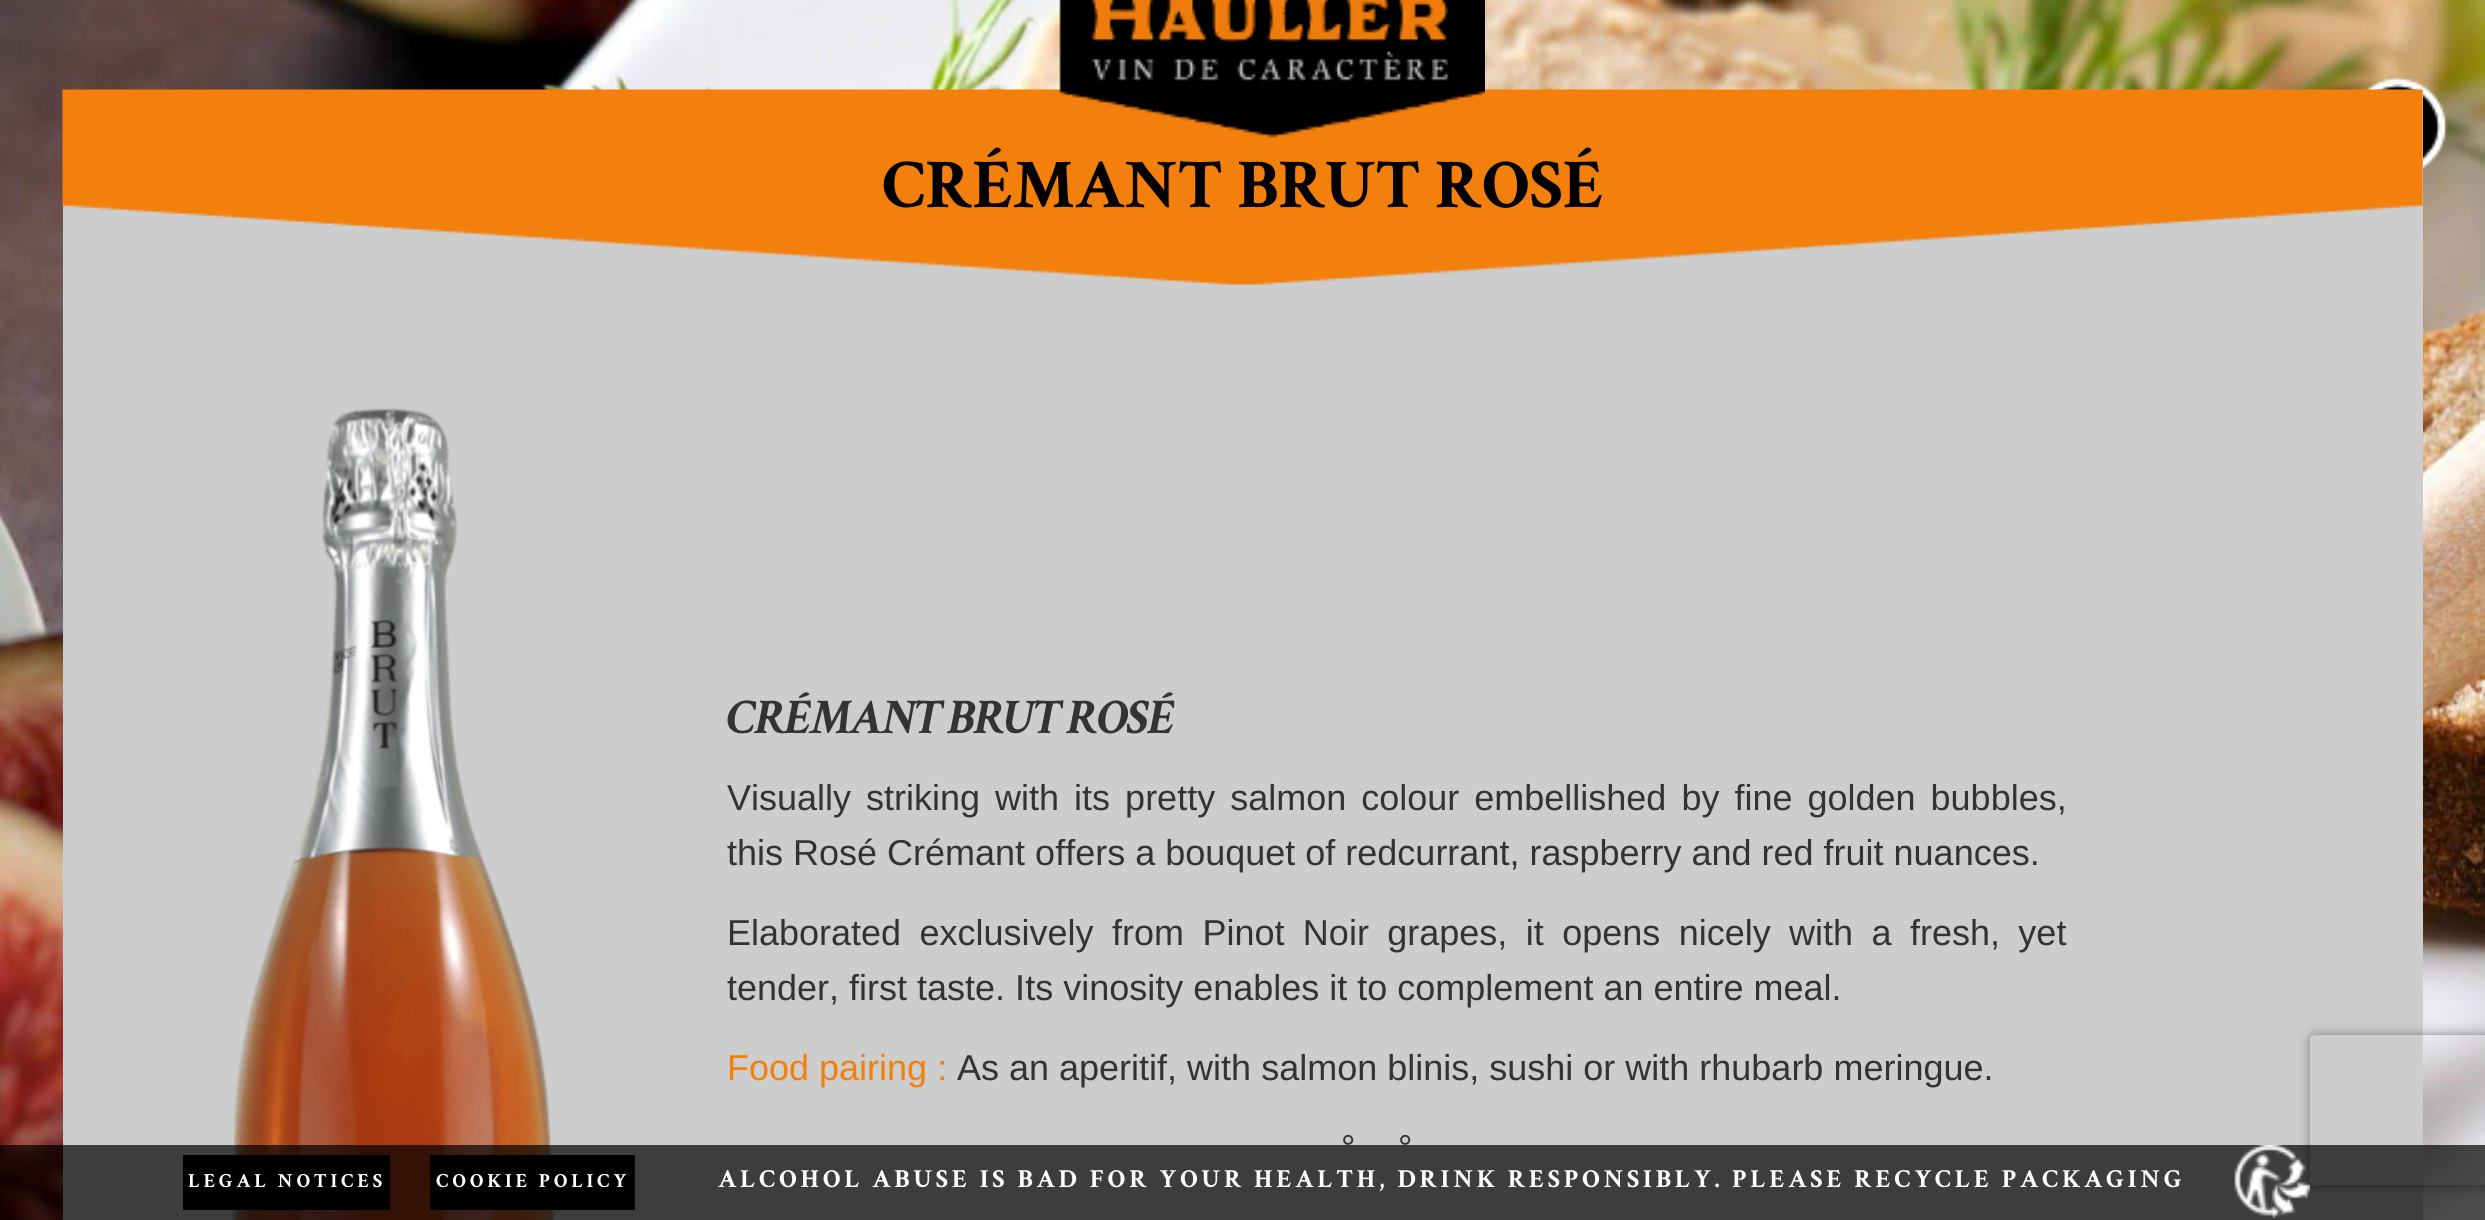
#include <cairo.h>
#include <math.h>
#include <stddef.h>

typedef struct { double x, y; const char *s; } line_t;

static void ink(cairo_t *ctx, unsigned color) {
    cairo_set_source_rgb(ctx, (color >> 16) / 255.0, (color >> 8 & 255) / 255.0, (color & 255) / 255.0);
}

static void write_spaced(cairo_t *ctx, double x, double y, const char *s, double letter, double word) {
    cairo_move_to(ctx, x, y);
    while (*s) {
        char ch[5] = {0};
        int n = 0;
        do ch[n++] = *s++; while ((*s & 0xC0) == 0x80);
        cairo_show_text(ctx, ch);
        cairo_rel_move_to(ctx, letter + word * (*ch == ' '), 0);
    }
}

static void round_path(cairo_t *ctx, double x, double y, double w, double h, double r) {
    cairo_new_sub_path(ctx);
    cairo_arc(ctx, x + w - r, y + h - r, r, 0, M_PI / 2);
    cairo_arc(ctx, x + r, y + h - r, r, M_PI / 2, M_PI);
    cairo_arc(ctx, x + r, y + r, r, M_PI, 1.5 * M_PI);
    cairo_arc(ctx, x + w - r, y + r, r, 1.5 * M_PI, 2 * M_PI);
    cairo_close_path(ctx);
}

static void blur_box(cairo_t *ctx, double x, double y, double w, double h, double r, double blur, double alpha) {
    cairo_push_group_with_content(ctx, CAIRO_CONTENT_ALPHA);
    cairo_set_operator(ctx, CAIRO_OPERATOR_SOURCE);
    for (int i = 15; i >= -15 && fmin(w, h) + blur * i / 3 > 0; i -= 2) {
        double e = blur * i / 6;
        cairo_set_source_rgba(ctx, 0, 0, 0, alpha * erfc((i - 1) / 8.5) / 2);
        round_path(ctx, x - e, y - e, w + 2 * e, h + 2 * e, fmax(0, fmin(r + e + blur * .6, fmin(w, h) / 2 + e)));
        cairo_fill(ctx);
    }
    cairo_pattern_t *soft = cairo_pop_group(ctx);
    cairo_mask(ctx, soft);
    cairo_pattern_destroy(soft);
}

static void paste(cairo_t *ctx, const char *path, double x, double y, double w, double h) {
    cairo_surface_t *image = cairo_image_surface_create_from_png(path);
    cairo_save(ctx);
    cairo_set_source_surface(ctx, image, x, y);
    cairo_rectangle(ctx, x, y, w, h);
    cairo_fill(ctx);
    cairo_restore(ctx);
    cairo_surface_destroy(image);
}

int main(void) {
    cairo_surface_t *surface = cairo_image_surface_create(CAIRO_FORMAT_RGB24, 2485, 1220);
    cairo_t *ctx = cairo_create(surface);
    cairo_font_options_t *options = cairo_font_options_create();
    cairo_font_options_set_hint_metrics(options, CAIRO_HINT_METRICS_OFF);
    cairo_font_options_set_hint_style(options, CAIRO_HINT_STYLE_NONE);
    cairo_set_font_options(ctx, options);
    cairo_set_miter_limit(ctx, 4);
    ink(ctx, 0xFFFFFF);
    cairo_paint(ctx);
    paste(ctx, "media/1.png", 0, 0, 2485, 1220);
    paste(ctx, "media/3.png", 2364, 77, 84, 93);
    ink(ctx, 0xCDCDCD);
    cairo_rectangle(ctx, 63, 90, 2360, 1130);
    cairo_fill(ctx);
    paste(ctx, "media/4.png", 62, 89, 2361, 196);
    paste(ctx, "media/2.png", 1059, 0, 426, 138);
    cairo_select_font_face(ctx, "Crimson Text", CAIRO_FONT_SLANT_NORMAL, CAIRO_FONT_WEIGHT_BOLD);
    cairo_set_font_size(ctx, 70);
    ink(ctx, 0x000000);
    cairo_move_to(ctx, 882, 207);
    cairo_show_text(ctx, "CRÉMANT BRUT ROSÉ");
    paste(ctx, "media/5.png", 230, 408, 325, 812);
    cairo_select_font_face(ctx, "Crimson Text", CAIRO_FONT_SLANT_ITALIC, CAIRO_FONT_WEIGHT_BOLD);
    cairo_set_font_size(ctx, 50);
    ink(ctx, 0x333333);
    write_spaced(ctx, 727, 733, "CRÉMANT BRUT ROSÉ", -1.25, 0);
    cairo_select_font_face(ctx, "Liberation Sans", CAIRO_FONT_SLANT_NORMAL, CAIRO_FONT_WEIGHT_NORMAL);
    cairo_set_font_size(ctx, 36);
    write_spaced(ctx, 727, 810, "Visually striking with its pretty salmon colour embellished by fine golden bubbles,", 0, 5);
    cairo_move_to(ctx, 727, 865);
    cairo_show_text(ctx, "this Rosé Crémant offers a bouquet of redcurrant, raspberry and red fruit nuances.");
    write_spaced(ctx, 727, 945, "Elaborated exclusively from Pinot Noir grapes, it opens nicely with a fresh, yet", 0, 8.4);
    cairo_move_to(ctx, 727, 1000);
    cairo_show_text(ctx, "tender, first taste. Its vinosity enables it to complement an entire meal.");
    ink(ctx, 0xF37F0B);
    cairo_move_to(ctx, 727, 1080);
    cairo_show_text(ctx, "Food pairing :");
    ink(ctx, 0x333333);
    {
        static const line_t items[] = {
            {957, 1080, "As an aperitif, with salmon blinis, sushi or with rhubarb meringue."},
            {1341, 1160, "°"},
            {1398, 1160, "°"},
        };
        for (size_t i = 0; i < sizeof items / sizeof *items; i++) {
            cairo_move_to(ctx, items[i].x, items[i].y);
            cairo_show_text(ctx, items[i].s);
        }
    }
    cairo_save(ctx);
    cairo_set_fill_rule(ctx, CAIRO_FILL_RULE_EVEN_ODD);
    cairo_new_path(ctx);
    cairo_move_to(ctx, 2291, 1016);
    cairo_line_to(ctx, 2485, 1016);
    cairo_line_to(ctx, 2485, 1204);
    cairo_line_to(ctx, 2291, 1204);
    cairo_close_path(ctx);
    cairo_move_to(ctx, 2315, 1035);
    cairo_line_to(ctx, 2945, 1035);
    cairo_curve_to(ctx, 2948, 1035, 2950, 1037, 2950, 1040);
    cairo_line_to(ctx, 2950, 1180);
    cairo_curve_to(ctx, 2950, 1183, 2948, 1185, 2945, 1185);
    cairo_line_to(ctx, 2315, 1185);
    cairo_curve_to(ctx, 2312, 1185, 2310, 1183, 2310, 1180);
    cairo_line_to(ctx, 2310, 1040);
    cairo_curve_to(ctx, 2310, 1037, 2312, 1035, 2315, 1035);
    cairo_close_path(ctx);
    cairo_clip(ctx);
    ink(ctx, 0x808080);
    blur_box(ctx, 2310, 1035, 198, 150, 5, 6, 1);
    cairo_restore(ctx);
    cairo_set_source_rgba(ctx, 0, 0, 0, 0.7);
    cairo_rectangle(ctx, 0, 1145, 2485, 75);
    cairo_fill(ctx);
    ink(ctx, 0x000000);
    cairo_rectangle(ctx, 183, 1155, 207, 55);
    cairo_fill(ctx);
    cairo_select_font_face(ctx, "Crimson Text", CAIRO_FONT_SLANT_NORMAL, CAIRO_FONT_WEIGHT_BOLD);
    cairo_set_font_size(ctx, 20);
    ink(ctx, 0xFFFFFF);
    write_spaced(ctx, 188, 1187, "LEGAL NOTICES", 3.75, 0);
    ink(ctx, 0x000000);
    cairo_rectangle(ctx, 430, 1155, 205, 55);
    cairo_fill(ctx);
    ink(ctx, 0xFFFFFF);
    write_spaced(ctx, 436, 1187, "COOKIE POLICY", 3.75, 0);
    cairo_set_font_size(ctx, 26);
    write_spaced(ctx, 718, 1187, "ALCOHOL ABUSE IS BAD FOR YOUR HEALTH, DRINK RESPONSIBLY.", 3.75, 0);
    write_spaced(ctx, 1732, 1187, "PLEASE RECYCLE PACKAGING", 3.75, 0);
    paste(ctx, "media/6.png", 2234, 1145, 76, 74);
    cairo_surface_write_to_png(surface, "image.png");
    cairo_font_options_destroy(options);
    cairo_destroy(ctx);
    cairo_surface_destroy(surface);
    return 0;
}
